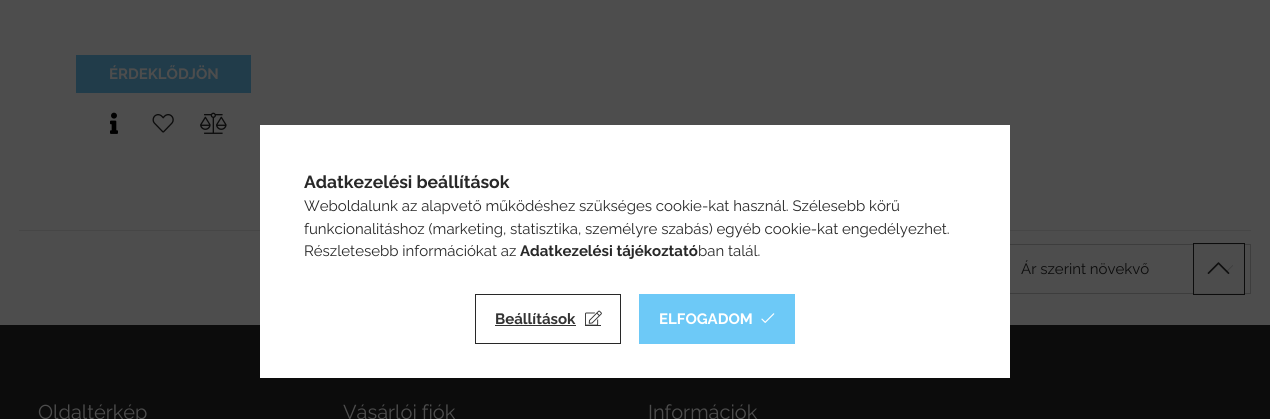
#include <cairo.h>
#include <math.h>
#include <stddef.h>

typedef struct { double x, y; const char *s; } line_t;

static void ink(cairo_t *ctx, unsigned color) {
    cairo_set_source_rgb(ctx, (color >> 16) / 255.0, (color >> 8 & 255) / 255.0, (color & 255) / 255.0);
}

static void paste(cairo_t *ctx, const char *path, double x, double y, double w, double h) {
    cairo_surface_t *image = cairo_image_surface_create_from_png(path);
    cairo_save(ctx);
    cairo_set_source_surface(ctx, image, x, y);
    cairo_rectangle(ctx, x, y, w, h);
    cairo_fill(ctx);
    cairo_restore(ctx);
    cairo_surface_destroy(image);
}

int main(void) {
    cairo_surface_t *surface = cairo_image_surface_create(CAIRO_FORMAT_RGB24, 1270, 419);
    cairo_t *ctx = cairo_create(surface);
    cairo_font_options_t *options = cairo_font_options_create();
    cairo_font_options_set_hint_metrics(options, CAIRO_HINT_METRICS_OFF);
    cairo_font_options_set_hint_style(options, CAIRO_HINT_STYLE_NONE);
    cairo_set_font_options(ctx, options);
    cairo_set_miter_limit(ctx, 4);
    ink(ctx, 0x4D4D4D);
    cairo_paint(ctx);
    ink(ctx, 0x213C4A);
    cairo_rectangle(ctx, 76, 55, 175, 38);
    cairo_fill(ctx);
    cairo_select_font_face(ctx, "Raleway", CAIRO_FONT_SLANT_NORMAL, CAIRO_FONT_WEIGHT_BOLD);
    cairo_set_font_size(ctx, 15);
    ink(ctx, 0x4D4D4D);
    cairo_move_to(ctx, 109, 79);
    cairo_show_text(ctx, "ÉRDEKLŐDJÖN");
    paste(ctx, "media/1.png", 110, 112, 8, 22);
    paste(ctx, "media/2.png", 152, 114, 22, 19);
    paste(ctx, "media/3.png", 200, 112, 27, 22);
    ink(ctx, 0x464646);
    cairo_rectangle(ctx, 19, 230, 1232, 1);
    cairo_fill(ctx);
    cairo_rectangle(ctx, 1001.5, 244.5, 249, 49);
    ink(ctx, 0x3D3D3D);
    cairo_set_line_width(ctx, 1);
    cairo_stroke(ctx);
    cairo_select_font_face(ctx, "Raleway", CAIRO_FONT_SLANT_NORMAL, CAIRO_FONT_WEIGHT_NORMAL);
    ink(ctx, 0x0C0C0C);
    cairo_move_to(ctx, 1021, 274);
    cairo_show_text(ctx, "Ár szerint növekvő");
    paste(ctx, "media/4.png", 1220, 265, 14, 8);
    cairo_rectangle(ctx, 0, 325, 1270, 94);
    cairo_fill(ctx);
    cairo_set_font_size(ctx, 20);
    ink(ctx, 0x4D4D4D);
    {
        static const line_t items[] = {
            {38, 419, "Oldaltérkép"},
            {343, 419, "Vásárlói fiók"},
            {648, 419, "Információk"},
        };
        for (size_t i = 0; i < sizeof items / sizeof *items; i++) {
            cairo_move_to(ctx, items[i].x, items[i].y);
            cairo_show_text(ctx, items[i].s);
        }
    }
    ink(ctx, 0xFFFFFF);
    cairo_rectangle(ctx, 260, 125, 750, 253);
    cairo_fill(ctx);
    cairo_select_font_face(ctx, "Raleway", CAIRO_FONT_SLANT_NORMAL, CAIRO_FONT_WEIGHT_BOLD);
    cairo_set_font_size(ctx, 17.5);
    ink(ctx, 0x282828);
    cairo_move_to(ctx, 304, 188);
    cairo_show_text(ctx, "Adatkezelési beállítások");
    cairo_select_font_face(ctx, "Raleway", CAIRO_FONT_SLANT_NORMAL, CAIRO_FONT_WEIGHT_NORMAL);
    cairo_set_font_size(ctx, 15);
    {
        static const line_t items[] = {
            {304, 211, "Weboldalunk az alapvető működéshez szükséges cookie-kat használ. Szélesebb körű"},
            {304, 234, "funkcionalitáshoz (marketing, statisztika, személyre szabás) egyéb cookie-kat engedélyezhet."},
            {304, 256, "Részletesebb információkat az"},
        };
        for (size_t i = 0; i < sizeof items / sizeof *items; i++) {
            cairo_move_to(ctx, items[i].x, items[i].y);
            cairo_show_text(ctx, items[i].s);
        }
    }
    cairo_select_font_face(ctx, "Raleway", CAIRO_FONT_SLANT_NORMAL, CAIRO_FONT_WEIGHT_BOLD);
    cairo_move_to(ctx, 520, 256);
    cairo_show_text(ctx, "Adatkezelési tájékoztató");
    cairo_select_font_face(ctx, "Raleway", CAIRO_FONT_SLANT_NORMAL, CAIRO_FONT_WEIGHT_NORMAL);
    cairo_move_to(ctx, 698, 256);
    cairo_show_text(ctx, "ban talál.");
    cairo_rectangle(ctx, 475.5, 294.5, 145, 49);
    cairo_stroke(ctx);
    cairo_select_font_face(ctx, "Raleway", CAIRO_FONT_SLANT_NORMAL, CAIRO_FONT_WEIGHT_BOLD);
    ink(ctx, 0x333333);
    cairo_move_to(ctx, 495, 324);
    cairo_show_text(ctx, "Beállítások");
    cairo_rectangle(ctx, 495, 325, 81, 1);
    cairo_fill(ctx);
    paste(ctx, "media/5.png", 585, 310, 17, 15);
    cairo_rectangle(ctx, 585, 325, 16, 1);
    cairo_fill(ctx);
    ink(ctx, 0x6DC9F7);
    cairo_rectangle(ctx, 639, 294, 156, 50);
    cairo_fill(ctx);
    ink(ctx, 0xFFFFFF);
    cairo_move_to(ctx, 659, 324);
    cairo_show_text(ctx, "ELFOGADOM");
    paste(ctx, "media/6.png", 761, 313, 14, 10);
    cairo_set_source_rgba(ctx, 0.302, 0.302, 0.302, 0.8);
    cairo_rectangle(ctx, 1193.5, 243.5, 51, 51);
    cairo_fill_preserve(ctx);
    ink(ctx, 0x0C0C0C);
    cairo_stroke(ctx);
    paste(ctx, "media/7.png", 1207, 262, 23, 12);
    cairo_surface_write_to_png(surface, "image.png");
    cairo_font_options_destroy(options);
    cairo_destroy(ctx);
    cairo_surface_destroy(surface);
    return 0;
}
